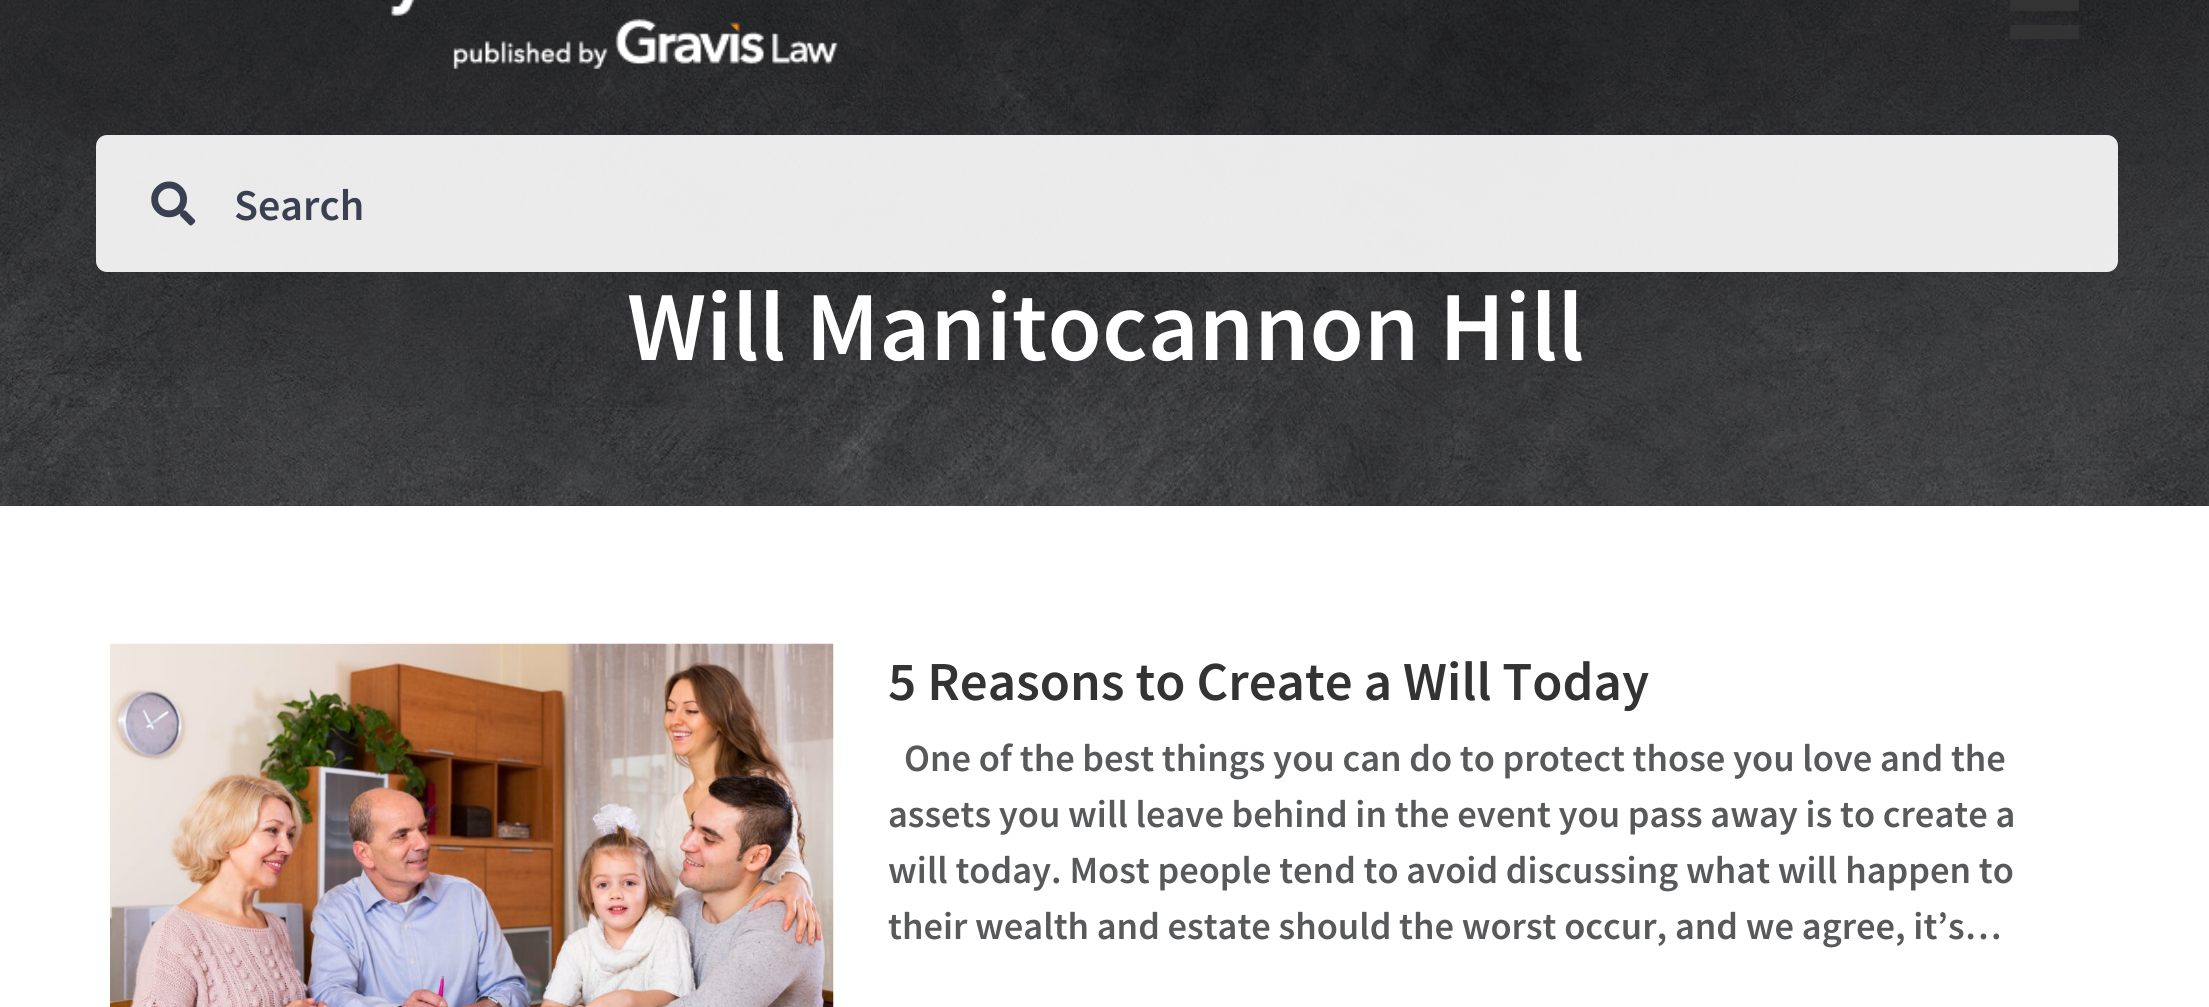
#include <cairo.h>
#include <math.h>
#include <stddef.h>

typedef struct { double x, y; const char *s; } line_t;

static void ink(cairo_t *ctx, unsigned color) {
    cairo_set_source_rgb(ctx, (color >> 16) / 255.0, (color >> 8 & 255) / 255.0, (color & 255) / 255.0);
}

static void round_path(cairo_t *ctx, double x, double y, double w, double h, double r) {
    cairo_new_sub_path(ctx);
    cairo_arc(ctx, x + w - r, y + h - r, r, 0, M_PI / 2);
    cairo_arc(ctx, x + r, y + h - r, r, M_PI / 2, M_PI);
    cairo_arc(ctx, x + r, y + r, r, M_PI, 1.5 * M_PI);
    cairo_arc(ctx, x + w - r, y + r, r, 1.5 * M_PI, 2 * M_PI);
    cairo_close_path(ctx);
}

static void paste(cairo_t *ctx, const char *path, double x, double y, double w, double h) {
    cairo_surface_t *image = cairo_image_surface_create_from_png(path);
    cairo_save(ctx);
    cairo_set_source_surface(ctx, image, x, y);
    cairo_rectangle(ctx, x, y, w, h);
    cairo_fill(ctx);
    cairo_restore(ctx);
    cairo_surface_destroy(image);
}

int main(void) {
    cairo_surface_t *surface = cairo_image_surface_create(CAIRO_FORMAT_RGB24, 2209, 1007);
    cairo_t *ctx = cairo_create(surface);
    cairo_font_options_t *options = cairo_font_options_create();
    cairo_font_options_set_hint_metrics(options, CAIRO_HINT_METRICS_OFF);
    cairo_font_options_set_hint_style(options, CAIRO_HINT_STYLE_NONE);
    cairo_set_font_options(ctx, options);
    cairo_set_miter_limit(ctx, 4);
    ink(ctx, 0xFFFFFF);
    cairo_paint(ctx);
    paste(ctx, "media/3.png", 0, 0, 2209, 506);
    paste(ctx, "media/1.png", 391, 0, 447, 69);
    ink(ctx, 0x333333);
    cairo_rectangle(ctx, 2010, 0, 69, 11);
    cairo_fill(ctx);
    cairo_rectangle(ctx, 2010, 25, 69, 14);
    cairo_fill(ctx);
    cairo_set_source_rgba(ctx, 1, 1, 1, 0.9);
    round_path(ctx, 96, 135, 2022, 137, 11);
    cairo_fill(ctx);
    paste(ctx, "media/2.png", 151, 181, 45, 45);
    cairo_select_font_face(ctx, "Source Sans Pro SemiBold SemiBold", CAIRO_FONT_SLANT_NORMAL, CAIRO_FONT_WEIGHT_NORMAL);
    cairo_set_font_size(ctx, 44);
    ink(ctx, 0x3B4051);
    cairo_move_to(ctx, 234, 220);
    cairo_show_text(ctx, "Search");
    cairo_set_font_size(ctx, 99);
    ink(ctx, 0xFFFFFF);
    cairo_move_to(ctx, 627, 360);
    cairo_show_text(ctx, "Will Manitocannon Hill");
    paste(ctx, "media/4.png", 110, 643, 724, 364);
    cairo_set_font_size(ctx, 55);
    ink(ctx, 0x333333);
    cairo_move_to(ctx, 888, 700);
    cairo_show_text(ctx, "5 Reasons to Create a Will Today");
    cairo_set_font_size(ctx, 38.5);
    ink(ctx, 0x58595B);
    {
        static const line_t items[] = {
            {904, 771, "One of the best things you can do to protect those you love and the"},
            {888, 827, "assets you will leave behind in the event you pass away is to create a"},
            {888, 883, "will today. Most people tend to avoid discussing what will happen to"},
            {888, 939, "their wealth and estate should the worst occur, and we agree, it’s…"},
        };
        for (size_t i = 0; i < sizeof items / sizeof *items; i++) {
            cairo_move_to(ctx, items[i].x, items[i].y);
            cairo_show_text(ctx, items[i].s);
        }
    }
    cairo_surface_write_to_png(surface, "image.png");
    cairo_font_options_destroy(options);
    cairo_destroy(ctx);
    cairo_surface_destroy(surface);
    return 0;
}
